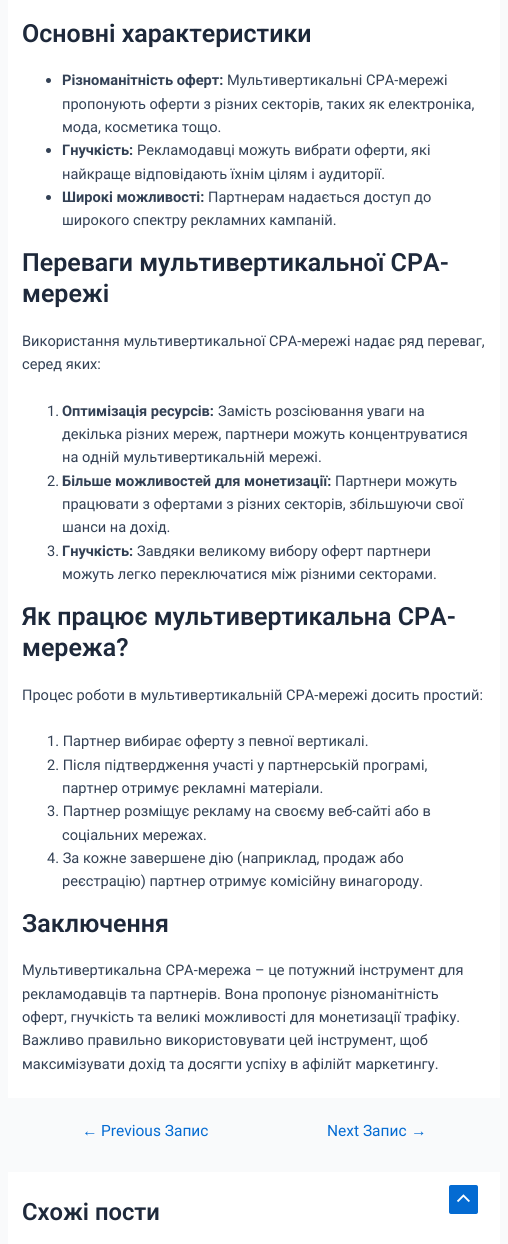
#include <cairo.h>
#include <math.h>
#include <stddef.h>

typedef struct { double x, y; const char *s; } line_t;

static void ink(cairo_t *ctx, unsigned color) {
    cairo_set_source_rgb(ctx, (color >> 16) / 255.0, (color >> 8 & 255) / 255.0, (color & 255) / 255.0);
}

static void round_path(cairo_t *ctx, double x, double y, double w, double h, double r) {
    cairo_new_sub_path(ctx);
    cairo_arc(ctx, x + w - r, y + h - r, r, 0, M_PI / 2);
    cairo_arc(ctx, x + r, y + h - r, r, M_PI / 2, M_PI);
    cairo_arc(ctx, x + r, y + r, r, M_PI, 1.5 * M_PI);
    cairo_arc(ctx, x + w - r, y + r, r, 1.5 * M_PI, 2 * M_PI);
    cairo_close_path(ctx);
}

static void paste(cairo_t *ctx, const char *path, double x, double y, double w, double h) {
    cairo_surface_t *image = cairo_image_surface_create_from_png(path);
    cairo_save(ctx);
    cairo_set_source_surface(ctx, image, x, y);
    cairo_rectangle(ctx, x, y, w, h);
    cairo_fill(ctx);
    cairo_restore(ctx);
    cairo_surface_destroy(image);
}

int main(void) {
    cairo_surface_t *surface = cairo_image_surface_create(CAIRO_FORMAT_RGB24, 508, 1244);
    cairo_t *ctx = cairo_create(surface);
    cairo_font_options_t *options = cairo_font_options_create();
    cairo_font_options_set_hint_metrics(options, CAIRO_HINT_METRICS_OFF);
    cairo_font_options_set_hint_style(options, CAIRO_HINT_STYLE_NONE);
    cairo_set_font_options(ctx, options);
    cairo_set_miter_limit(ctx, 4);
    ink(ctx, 0xF9FAFB);
    cairo_paint(ctx);
    ink(ctx, 0xFFFFFF);
    cairo_rectangle(ctx, 8, 0, 492, 1098);
    cairo_fill(ctx);
    cairo_select_font_face(ctx, "Roboto SemiBold", CAIRO_FONT_SLANT_NORMAL, CAIRO_FONT_WEIGHT_NORMAL);
    cairo_set_font_size(ctx, 25);
    ink(ctx, 0x1E293B);
    cairo_move_to(ctx, 22, 42);
    cairo_show_text(ctx, "Основні характеристики");
    ink(ctx, 0x334155);
    cairo_new_path(ctx);
    cairo_arc(ctx, 48.5, 80.5, 2.5, 0, 2 * M_PI);
    cairo_fill(ctx);
    cairo_select_font_face(ctx, "Roboto", CAIRO_FONT_SLANT_NORMAL, CAIRO_FONT_WEIGHT_BOLD);
    cairo_set_font_size(ctx, 14.6);
    cairo_move_to(ctx, 62, 85);
    cairo_show_text(ctx, "Різноманітність оферт:");
    cairo_select_font_face(ctx, "Roboto", CAIRO_FONT_SLANT_NORMAL, CAIRO_FONT_WEIGHT_NORMAL);
    {
        static const line_t items[] = {
            {227, 85, "Мультивертикальні CPA-мережі"},
            {62, 109, "пропонують оферти з різних секторів, таких як електроніка,"},
            {62, 132, "мода, косметика тощо."},
        };
        for (size_t i = 0; i < sizeof items / sizeof *items; i++) {
            cairo_move_to(ctx, items[i].x, items[i].y);
            cairo_show_text(ctx, items[i].s);
        }
    }
    cairo_new_path(ctx);
    cairo_arc(ctx, 48.5, 150.5, 2.5, 0, 2 * M_PI);
    cairo_fill(ctx);
    cairo_select_font_face(ctx, "Roboto", CAIRO_FONT_SLANT_NORMAL, CAIRO_FONT_WEIGHT_BOLD);
    cairo_move_to(ctx, 62, 155);
    cairo_show_text(ctx, "Гнучкість:");
    cairo_select_font_face(ctx, "Roboto", CAIRO_FONT_SLANT_NORMAL, CAIRO_FONT_WEIGHT_NORMAL);
    cairo_move_to(ctx, 137, 155);
    cairo_show_text(ctx, "Рекламодавці можуть вибрати оферти, які");
    cairo_move_to(ctx, 62, 179);
    cairo_show_text(ctx, "найкраще відповідають їхнім цілям і аудиторії.");
    cairo_new_path(ctx);
    cairo_arc(ctx, 48.5, 197.5, 2.5, 0, 2 * M_PI);
    cairo_fill(ctx);
    cairo_select_font_face(ctx, "Roboto", CAIRO_FONT_SLANT_NORMAL, CAIRO_FONT_WEIGHT_BOLD);
    cairo_move_to(ctx, 62, 202);
    cairo_show_text(ctx, "Широкі можливості:");
    cairo_select_font_face(ctx, "Roboto", CAIRO_FONT_SLANT_NORMAL, CAIRO_FONT_WEIGHT_NORMAL);
    cairo_move_to(ctx, 208, 202);
    cairo_show_text(ctx, "Партнерам надається доступ до");
    cairo_move_to(ctx, 62, 225);
    cairo_show_text(ctx, "широкого спектру рекламних кампаній.");
    cairo_select_font_face(ctx, "Roboto SemiBold", CAIRO_FONT_SLANT_NORMAL, CAIRO_FONT_WEIGHT_NORMAL);
    cairo_set_font_size(ctx, 25);
    ink(ctx, 0x1E293B);
    cairo_move_to(ctx, 22, 271);
    cairo_show_text(ctx, "Переваги мультивертикальної CPA-");
    cairo_move_to(ctx, 22, 302);
    cairo_show_text(ctx, "мережі");
    cairo_select_font_face(ctx, "Roboto", CAIRO_FONT_SLANT_NORMAL, CAIRO_FONT_WEIGHT_NORMAL);
    cairo_set_font_size(ctx, 14.6);
    ink(ctx, 0x334155);
    {
        static const line_t items[] = {
            {22, 346, "Використання мультивертикальної CPA-мережі надає ряд переваг,"},
            {22, 369, "серед яких:"},
            {47, 416, "1."},
        };
        for (size_t i = 0; i < sizeof items / sizeof *items; i++) {
            cairo_move_to(ctx, items[i].x, items[i].y);
            cairo_show_text(ctx, items[i].s);
        }
    }
    cairo_select_font_face(ctx, "Roboto", CAIRO_FONT_SLANT_NORMAL, CAIRO_FONT_WEIGHT_BOLD);
    cairo_move_to(ctx, 62, 416);
    cairo_show_text(ctx, "Оптимізація ресурсів:");
    cairo_select_font_face(ctx, "Roboto", CAIRO_FONT_SLANT_NORMAL, CAIRO_FONT_WEIGHT_NORMAL);
    {
        static const line_t items[] = {
            {218, 416, "Замість розсіювання уваги на"},
            {62, 439, "декілька різних мереж, партнери можуть концентруватися"},
            {62, 462, "на одній мультивертикальній мережі."},
            {47, 486, "2."},
        };
        for (size_t i = 0; i < sizeof items / sizeof *items; i++) {
            cairo_move_to(ctx, items[i].x, items[i].y);
            cairo_show_text(ctx, items[i].s);
        }
    }
    cairo_select_font_face(ctx, "Roboto", CAIRO_FONT_SLANT_NORMAL, CAIRO_FONT_WEIGHT_BOLD);
    cairo_move_to(ctx, 62, 486);
    cairo_show_text(ctx, "Більше можливостей для монетизації:");
    cairo_select_font_face(ctx, "Roboto", CAIRO_FONT_SLANT_NORMAL, CAIRO_FONT_WEIGHT_NORMAL);
    {
        static const line_t items[] = {
            {335, 486, "Партнери можуть"},
            {62, 509, "працювати з офертами з різних секторів, збільшуючи свої"},
            {62, 532, "шанси на дохід."},
            {47, 556, "3."},
        };
        for (size_t i = 0; i < sizeof items / sizeof *items; i++) {
            cairo_move_to(ctx, items[i].x, items[i].y);
            cairo_show_text(ctx, items[i].s);
        }
    }
    cairo_select_font_face(ctx, "Roboto", CAIRO_FONT_SLANT_NORMAL, CAIRO_FONT_WEIGHT_BOLD);
    cairo_move_to(ctx, 62, 556);
    cairo_show_text(ctx, "Гнучкість:");
    cairo_select_font_face(ctx, "Roboto", CAIRO_FONT_SLANT_NORMAL, CAIRO_FONT_WEIGHT_NORMAL);
    cairo_move_to(ctx, 137, 556);
    cairo_show_text(ctx, "Завдяки великому вибору оферт партнери");
    cairo_move_to(ctx, 62, 579);
    cairo_show_text(ctx, "можуть легко переключатися між різними секторами.");
    cairo_select_font_face(ctx, "Roboto SemiBold", CAIRO_FONT_SLANT_NORMAL, CAIRO_FONT_WEIGHT_NORMAL);
    cairo_set_font_size(ctx, 25);
    ink(ctx, 0x1E293B);
    cairo_move_to(ctx, 22, 625);
    cairo_show_text(ctx, "Як працює мультивертикальна CPA-");
    cairo_move_to(ctx, 22, 656);
    cairo_show_text(ctx, "мережа?");
    cairo_select_font_face(ctx, "Roboto", CAIRO_FONT_SLANT_NORMAL, CAIRO_FONT_WEIGHT_NORMAL);
    cairo_set_font_size(ctx, 14.6);
    ink(ctx, 0x334155);
    {
        static const line_t items[] = {
            {22, 700, "Процес роботи в мультивертикальній CPA-мережі досить простий:"},
            {47, 746, "1. Партнер вибирає оферту з певної вертикалі."},
            {47, 770, "2. Після підтвердження участі у партнерській програмі,"},
            {62, 793, "партнер отримує рекламні матеріали."},
            {47, 816, "3. Партнер розміщує рекламу на своєму веб-сайті або в"},
            {62, 840, "соціальних мережах."},
            {47, 863, "4. За кожне завершене дію (наприклад, продаж або"},
            {62, 886, "реєстрацію) партнер отримує комісійну винагороду."},
        };
        for (size_t i = 0; i < sizeof items / sizeof *items; i++) {
            cairo_move_to(ctx, items[i].x, items[i].y);
            cairo_show_text(ctx, items[i].s);
        }
    }
    cairo_select_font_face(ctx, "Roboto SemiBold", CAIRO_FONT_SLANT_NORMAL, CAIRO_FONT_WEIGHT_NORMAL);
    cairo_set_font_size(ctx, 25);
    ink(ctx, 0x1E293B);
    cairo_move_to(ctx, 22, 932);
    cairo_show_text(ctx, "Заключення");
    cairo_select_font_face(ctx, "Roboto", CAIRO_FONT_SLANT_NORMAL, CAIRO_FONT_WEIGHT_NORMAL);
    cairo_set_font_size(ctx, 14.6);
    ink(ctx, 0x334155);
    {
        static const line_t items[] = {
            {22, 975, "Мультивертикальна CPA-мережа – це потужний інструмент для"},
            {22, 999, "рекламодавців та партнерів. Вона пропонує різноманітність"},
            {22, 1022, "оферт, гнучкість та великі можливості для монетизації трафіку."},
            {22, 1045, "Важливо правильно використовувати цей інструмент, щоб"},
            {22, 1069, "максимізувати дохід та досягти успіху в афілійт маркетингу."},
        };
        for (size_t i = 0; i < sizeof items / sizeof *items; i++) {
            cairo_move_to(ctx, items[i].x, items[i].y);
            cairo_show_text(ctx, items[i].s);
        }
    }
    cairo_select_font_face(ctx, "Liberation Sans", CAIRO_FONT_SLANT_NORMAL, CAIRO_FONT_WEIGHT_NORMAL);
    cairo_set_font_size(ctx, 15.5);
    ink(ctx, 0x046BD2);
    cairo_move_to(ctx, 82, 1136);
    cairo_show_text(ctx, "←");
    cairo_select_font_face(ctx, "Roboto", CAIRO_FONT_SLANT_NORMAL, CAIRO_FONT_WEIGHT_NORMAL);
    cairo_move_to(ctx, 101, 1136);
    cairo_show_text(ctx, "Previous Запис");
    cairo_move_to(ctx, 327, 1136);
    cairo_show_text(ctx, "Next Запис");
    cairo_select_font_face(ctx, "Liberation Sans", CAIRO_FONT_SLANT_NORMAL, CAIRO_FONT_WEIGHT_NORMAL);
    cairo_move_to(ctx, 411, 1136);
    cairo_show_text(ctx, "→");
    ink(ctx, 0xFFFFFF);
    cairo_rectangle(ctx, 8, 1172, 492, 72);
    cairo_fill(ctx);
    cairo_select_font_face(ctx, "Roboto SemiBold", CAIRO_FONT_SLANT_NORMAL, CAIRO_FONT_WEIGHT_NORMAL);
    cairo_set_font_size(ctx, 23.75);
    ink(ctx, 0x1E293B);
    cairo_move_to(ctx, 22, 1220);
    cairo_show_text(ctx, "Схожі пости");
    ink(ctx, 0x046BD2);
    round_path(ctx, 449, 1185, 29, 29, 2);
    cairo_fill(ctx);
    paste(ctx, "media/1.png", 457, 1194, 13, 9);
    cairo_surface_write_to_png(surface, "image.png");
    cairo_font_options_destroy(options);
    cairo_destroy(ctx);
    cairo_surface_destroy(surface);
    return 0;
}
